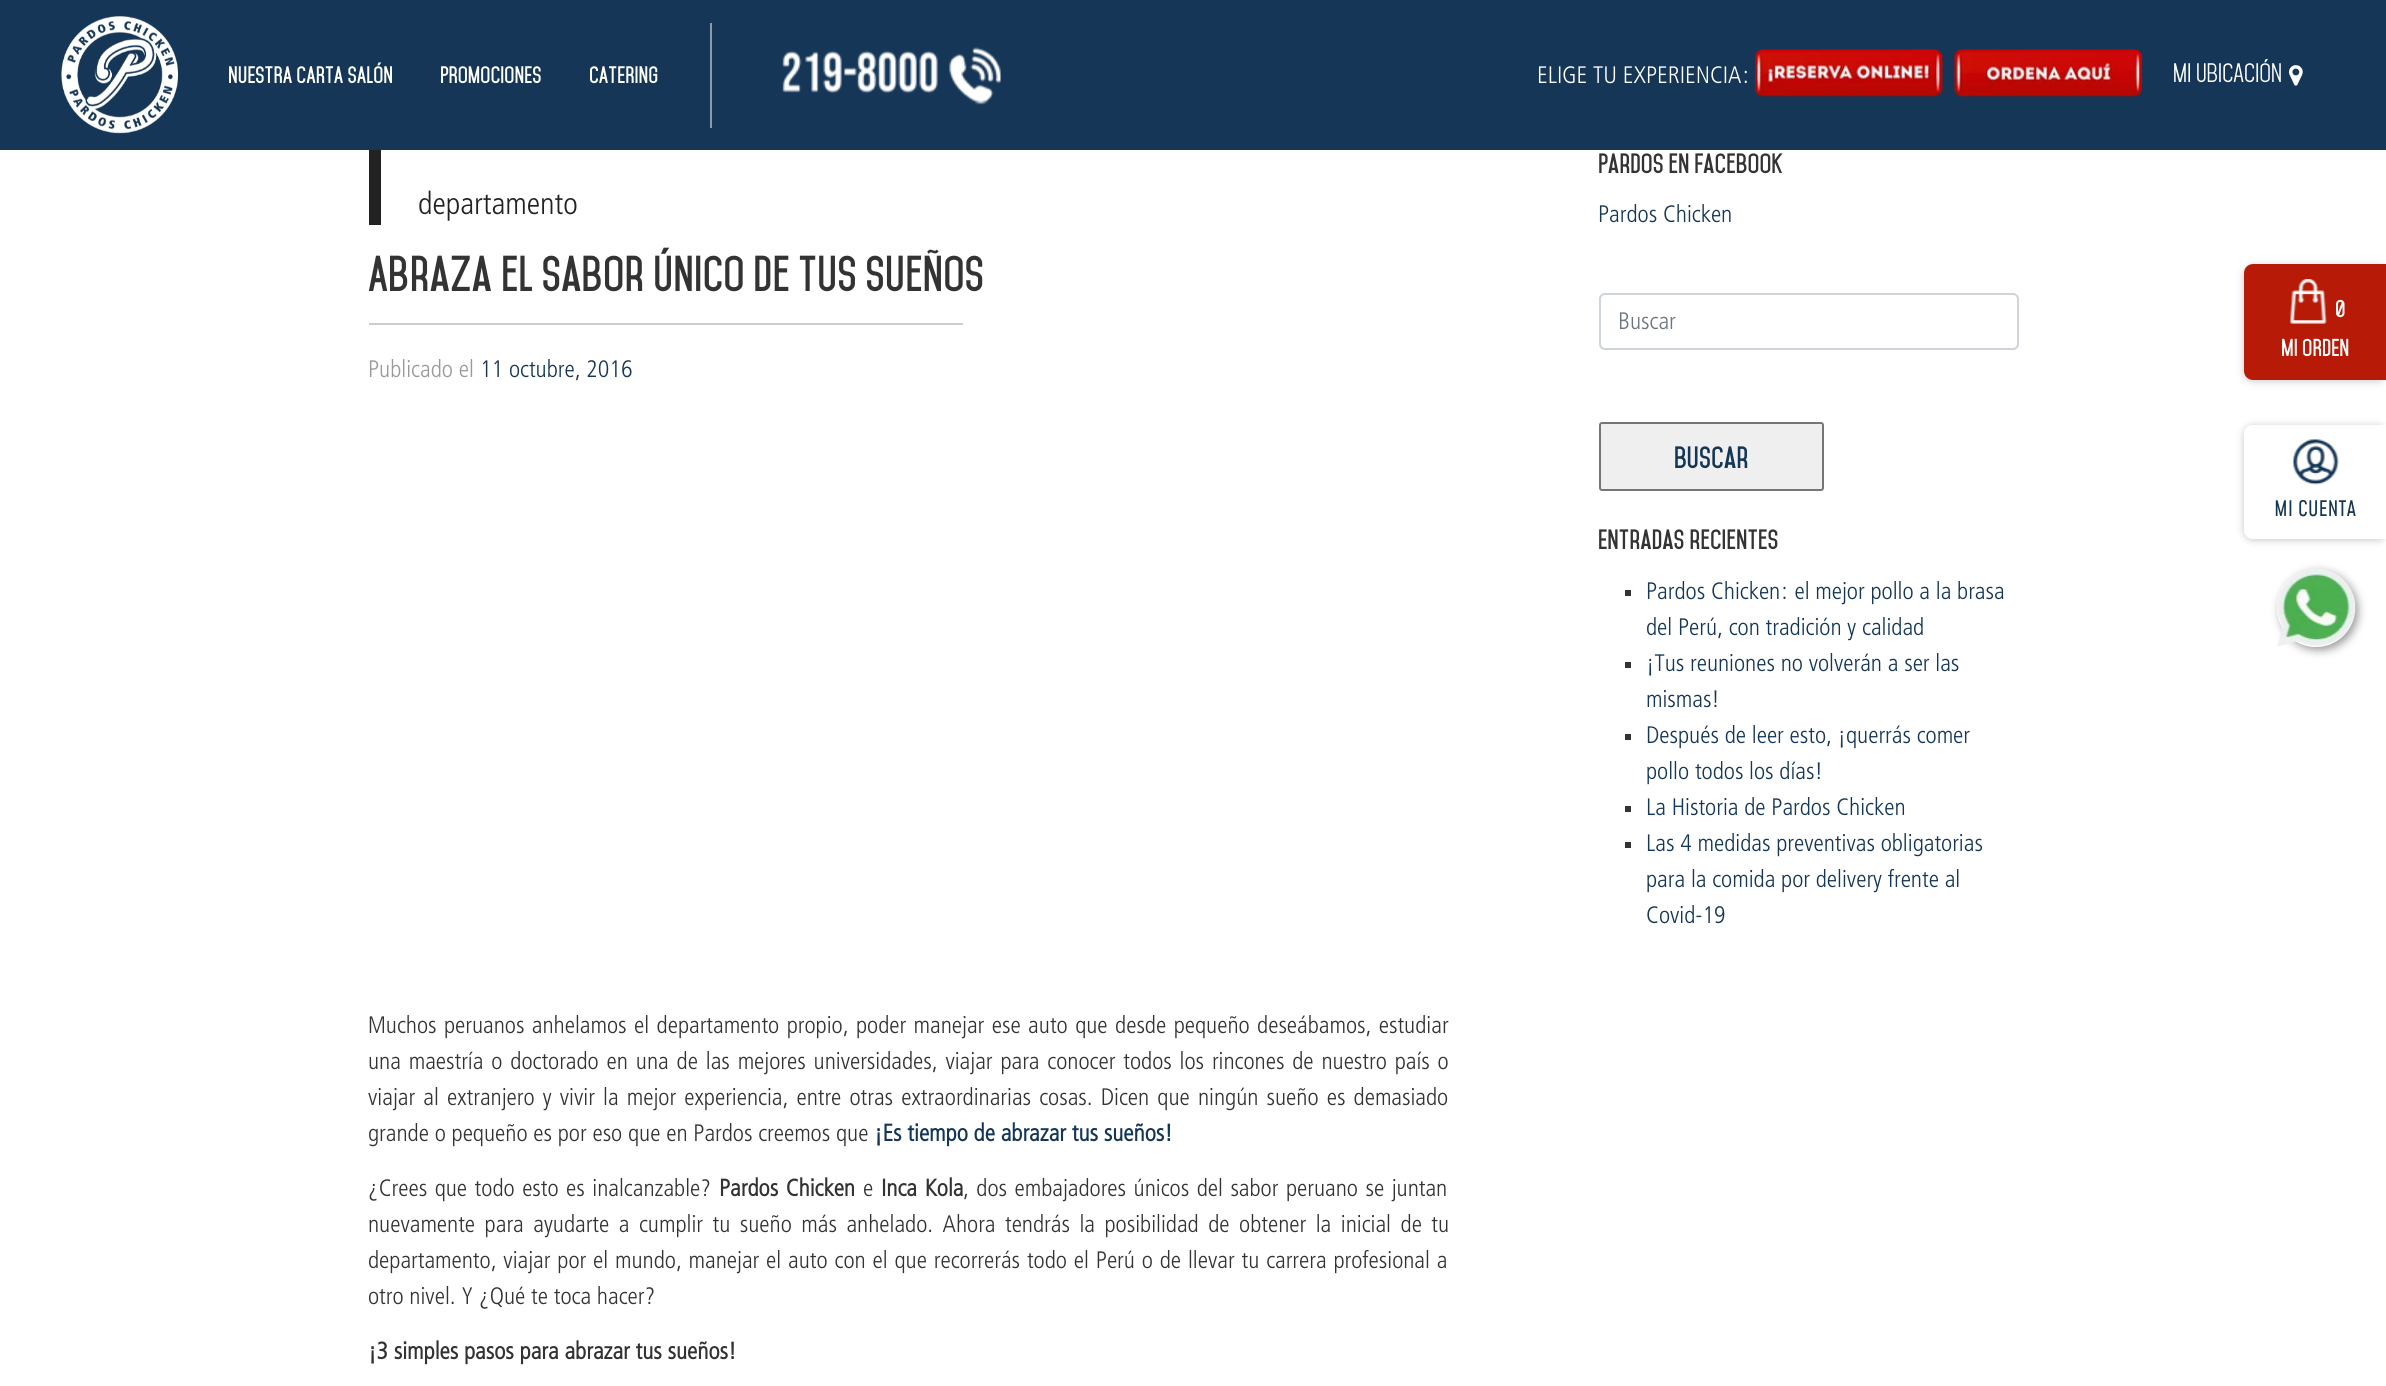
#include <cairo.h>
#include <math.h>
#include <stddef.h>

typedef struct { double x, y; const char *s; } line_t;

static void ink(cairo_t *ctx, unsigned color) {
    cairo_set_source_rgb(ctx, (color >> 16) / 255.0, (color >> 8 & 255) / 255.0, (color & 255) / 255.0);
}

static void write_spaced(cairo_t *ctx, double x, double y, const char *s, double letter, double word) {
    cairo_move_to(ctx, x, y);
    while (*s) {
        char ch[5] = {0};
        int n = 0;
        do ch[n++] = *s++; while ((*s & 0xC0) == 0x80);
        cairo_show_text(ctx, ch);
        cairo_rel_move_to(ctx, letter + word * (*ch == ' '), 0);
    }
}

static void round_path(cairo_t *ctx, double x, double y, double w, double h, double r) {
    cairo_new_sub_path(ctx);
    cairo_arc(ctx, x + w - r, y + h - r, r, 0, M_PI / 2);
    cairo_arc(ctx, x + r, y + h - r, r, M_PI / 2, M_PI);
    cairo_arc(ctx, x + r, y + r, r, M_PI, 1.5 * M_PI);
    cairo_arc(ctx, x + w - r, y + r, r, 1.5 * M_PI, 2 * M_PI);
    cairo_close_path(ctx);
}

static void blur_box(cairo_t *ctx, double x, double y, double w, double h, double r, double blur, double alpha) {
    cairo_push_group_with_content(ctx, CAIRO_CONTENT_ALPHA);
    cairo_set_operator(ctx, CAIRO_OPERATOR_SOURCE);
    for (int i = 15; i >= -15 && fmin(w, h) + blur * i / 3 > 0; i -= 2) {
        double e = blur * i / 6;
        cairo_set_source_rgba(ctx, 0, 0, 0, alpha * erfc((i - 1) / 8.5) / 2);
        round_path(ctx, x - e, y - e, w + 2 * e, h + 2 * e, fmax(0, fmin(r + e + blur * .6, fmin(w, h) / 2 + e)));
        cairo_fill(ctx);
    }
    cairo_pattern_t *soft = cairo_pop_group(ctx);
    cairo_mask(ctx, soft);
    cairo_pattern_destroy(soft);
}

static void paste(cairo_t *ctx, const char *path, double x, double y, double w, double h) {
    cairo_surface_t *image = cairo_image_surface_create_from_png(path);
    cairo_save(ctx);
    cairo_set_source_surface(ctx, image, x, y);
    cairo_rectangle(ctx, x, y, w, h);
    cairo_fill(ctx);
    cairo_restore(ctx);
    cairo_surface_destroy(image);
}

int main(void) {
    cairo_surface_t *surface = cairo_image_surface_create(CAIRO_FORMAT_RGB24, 2386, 1386);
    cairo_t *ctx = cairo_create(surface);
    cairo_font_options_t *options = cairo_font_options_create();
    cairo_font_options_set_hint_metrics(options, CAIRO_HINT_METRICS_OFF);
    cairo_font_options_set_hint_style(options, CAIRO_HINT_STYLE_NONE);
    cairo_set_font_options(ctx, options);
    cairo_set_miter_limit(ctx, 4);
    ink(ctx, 0xFFFFFF);
    cairo_paint(ctx);
    ink(ctx, 0x153656);
    cairo_rectangle(ctx, 0, 0, 2386, 150);
    cairo_fill(ctx);
    paste(ctx, "media/1.png", 61, 16, 117, 118);
    ink(ctx, 0x8A9BAB);
    cairo_rectangle(ctx, 710, 23, 2, 105);
    cairo_fill(ctx);
    cairo_select_font_face(ctx, "Mohave", CAIRO_FONT_SLANT_NORMAL, CAIRO_FONT_WEIGHT_BOLD);
    cairo_set_font_size(ctx, 20.5);
    ink(ctx, 0xFFFFFF);
    {
        static const line_t items[] = {
            {228, 83, "NUESTRA CARTA SALÓN"},
            {440, 83, "PROMOCIONES"},
            {589, 83, "CATERING"},
        };
        for (size_t i = 0; i < sizeof items / sizeof *items; i++) {
            cairo_move_to(ctx, items[i].x, items[i].y);
            cairo_show_text(ctx, items[i].s);
        }
    }
    paste(ctx, "media/2.png", 782, 47, 219, 58);
    cairo_select_font_face(ctx, "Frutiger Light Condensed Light", CAIRO_FONT_SLANT_NORMAL, CAIRO_FONT_WEIGHT_NORMAL);
    cairo_set_font_size(ctx, 24);
    cairo_move_to(ctx, 1537, 83);
    cairo_show_text(ctx, "ELIGE TU EXPERIENCIA:");
    paste(ctx, "media/3.png", 1755, 49, 188, 48);
    paste(ctx, "media/4.png", 1954, 49, 188, 48);
    cairo_select_font_face(ctx, "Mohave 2", CAIRO_FONT_SLANT_NORMAL, CAIRO_FONT_WEIGHT_NORMAL);
    cairo_set_font_size(ctx, 23);
    cairo_move_to(ctx, 2173, 82);
    cairo_show_text(ctx, "MI UBICACIÓN");
    paste(ctx, "media/5.png", 2289, 65, 14, 21);
    ink(ctx, 0x222222);
    cairo_rectangle(ctx, 369, 150, 12, 75);
    cairo_fill(ctx);
    cairo_select_font_face(ctx, "Frutiger Light Condensed Light", CAIRO_FONT_SLANT_NORMAL, CAIRO_FONT_WEIGHT_NORMAL);
    cairo_set_font_size(ctx, 31.25);
    cairo_move_to(ctx, 418, 214);
    cairo_show_text(ctx, "departamento");
    cairo_select_font_face(ctx, "Mohave", CAIRO_FONT_SLANT_NORMAL, CAIRO_FONT_WEIGHT_BOLD);
    cairo_set_font_size(ctx, 43.25);
    ink(ctx, 0x333333);
    cairo_move_to(ctx, 368, 291);
    cairo_show_text(ctx, "Abraza el sabor único de tus sueños");
    ink(ctx, 0xCCCCCC);
    cairo_rectangle(ctx, 369, 323, 594, 2);
    cairo_fill(ctx);
    cairo_select_font_face(ctx, "Frutiger Light Condensed Light", CAIRO_FONT_SLANT_NORMAL, CAIRO_FONT_WEIGHT_NORMAL);
    cairo_set_font_size(ctx, 24);
    ink(ctx, 0x999999);
    cairo_move_to(ctx, 368, 377);
    cairo_show_text(ctx, "Publicado el");
    ink(ctx, 0x153656);
    cairo_move_to(ctx, 480, 377);
    cairo_show_text(ctx, "11 octubre, 2016");
    ink(ctx, 0x333333);
    write_spaced(ctx, 368, 1033, "Muchos peruanos anhelamos el departamento propio, poder manejar ese auto que desde pequeño deseábamos, estudiar", 0, 1.7);
    write_spaced(ctx, 368, 1069, "una maestría o doctorado en una de las mejores universidades, viajar para conocer todos los rincones de nuestro país o", 0, 2.1);
    write_spaced(ctx, 368, 1105, "viajar al extranjero y vivir la mejor experiencia, entre otras extraordinarias cosas. Dicen que ningún sueño es demasiado", 0, 2.4);
    cairo_move_to(ctx, 368, 1141);
    cairo_show_text(ctx, "grande o pequeño es por eso que en Pardos creemos que");
    cairo_select_font_face(ctx, "Frutiger Light Condensed", CAIRO_FONT_SLANT_NORMAL, CAIRO_FONT_WEIGHT_BOLD);
    ink(ctx, 0x153656);
    cairo_move_to(ctx, 874, 1141);
    cairo_show_text(ctx, "¡Es tiempo de abrazar tus sueños!");
    cairo_select_font_face(ctx, "Frutiger Light Condensed Light", CAIRO_FONT_SLANT_NORMAL, CAIRO_FONT_WEIGHT_NORMAL);
    ink(ctx, 0x333333);
    write_spaced(ctx, 368, 1196, "¿Crees que todo esto es inalcanzable?", 0, 1.75);
    cairo_select_font_face(ctx, "Frutiger Light Condensed", CAIRO_FONT_SLANT_NORMAL, CAIRO_FONT_WEIGHT_BOLD);
    write_spaced(ctx, 719, 1196, "Pardos Chicken", 0, 1.75);
    cairo_select_font_face(ctx, "Frutiger Light Condensed Light", CAIRO_FONT_SLANT_NORMAL, CAIRO_FONT_WEIGHT_NORMAL);
    cairo_move_to(ctx, 863, 1196);
    cairo_show_text(ctx, "e");
    cairo_select_font_face(ctx, "Frutiger Light Condensed", CAIRO_FONT_SLANT_NORMAL, CAIRO_FONT_WEIGHT_BOLD);
    write_spaced(ctx, 881, 1196, "Inca Kola", 0, 2);
    cairo_select_font_face(ctx, "Frutiger Light Condensed Light", CAIRO_FONT_SLANT_NORMAL, CAIRO_FONT_WEIGHT_NORMAL);
    write_spaced(ctx, 963, 1196, ", dos embajadores únicos del sabor peruano se juntan", 0, 1.75);
    write_spaced(ctx, 368, 1232, "nuevamente para ayudarte a cumplir tu sueño más anhelado. Ahora tendrás la posibilidad de obtener la inicial de tu", 0, 3.75);
    write_spaced(ctx, 368, 1268, "departamento, viajar por el mundo, manejar el auto con el que recorrerás todo el Perú o de llevar tu carrera profesional a", 0, 1.1);
    cairo_move_to(ctx, 368, 1304);
    cairo_show_text(ctx, "otro nivel. Y ¿Qué te toca hacer?");
    cairo_select_font_face(ctx, "Frutiger Light Condensed", CAIRO_FONT_SLANT_NORMAL, CAIRO_FONT_WEIGHT_BOLD);
    cairo_move_to(ctx, 368, 1359);
    cairo_show_text(ctx, "¡3 simples pasos para abrazar tus sueños!");
    cairo_select_font_face(ctx, "Mohave", CAIRO_FONT_SLANT_NORMAL, CAIRO_FONT_WEIGHT_BOLD);
    cairo_move_to(ctx, 1598, 173);
    cairo_show_text(ctx, "Pardos en Facebook");
    cairo_select_font_face(ctx, "Frutiger Light Condensed Light", CAIRO_FONT_SLANT_NORMAL, CAIRO_FONT_WEIGHT_NORMAL);
    ink(ctx, 0x153656);
    cairo_move_to(ctx, 1598, 222);
    cairo_show_text(ctx, "Pardos Chicken");
    round_path(ctx, 1600, 294, 418, 55, 5);
    ink(ctx, 0xCED4DA);
    cairo_stroke(ctx);
    ink(ctx, 0x6C757D);
    cairo_move_to(ctx, 1618, 329);
    cairo_show_text(ctx, "Buscar");
    ink(ctx, 0xEFEFEF);
    round_path(ctx, 1600, 423, 223, 67, 2);
    cairo_fill_preserve(ctx);
    ink(ctx, 0x767676);
    cairo_stroke(ctx);
    cairo_select_font_face(ctx, "Mohave", CAIRO_FONT_SLANT_NORMAL, CAIRO_FONT_WEIGHT_BOLD);
    cairo_set_font_size(ctx, 26.5);
    ink(ctx, 0x153656);
    cairo_move_to(ctx, 1674, 468);
    cairo_show_text(ctx, "Buscar");
    cairo_set_font_size(ctx, 24);
    ink(ctx, 0x333333);
    cairo_move_to(ctx, 1598, 549);
    cairo_show_text(ctx, "Entradas recientes");
    cairo_rectangle(ctx, 1625, 590, 6, 6);
    cairo_fill(ctx);
    cairo_select_font_face(ctx, "Frutiger Light Condensed Light", CAIRO_FONT_SLANT_NORMAL, CAIRO_FONT_WEIGHT_NORMAL);
    ink(ctx, 0x153656);
    cairo_move_to(ctx, 1646, 599);
    cairo_show_text(ctx, "Pardos Chicken: el mejor pollo a la brasa");
    cairo_move_to(ctx, 1646, 635);
    cairo_show_text(ctx, "del Perú, con tradición y calidad");
    ink(ctx, 0x333333);
    cairo_rectangle(ctx, 1625, 662, 6, 6);
    cairo_fill(ctx);
    ink(ctx, 0x153656);
    cairo_move_to(ctx, 1646, 671);
    cairo_show_text(ctx, "¡Tus reuniones no volverán a ser las");
    cairo_move_to(ctx, 1646, 707);
    cairo_show_text(ctx, "mismas!");
    ink(ctx, 0x333333);
    cairo_rectangle(ctx, 1625, 734, 6, 6);
    cairo_fill(ctx);
    ink(ctx, 0x153656);
    cairo_move_to(ctx, 1646, 743);
    cairo_show_text(ctx, "Después de leer esto, ¡querrás comer");
    cairo_move_to(ctx, 1646, 779);
    cairo_show_text(ctx, "pollo todos los días!");
    ink(ctx, 0x333333);
    cairo_rectangle(ctx, 1625, 806, 6, 6);
    cairo_fill(ctx);
    ink(ctx, 0x153656);
    cairo_move_to(ctx, 1646, 815);
    cairo_show_text(ctx, "La Historia de Pardos Chicken");
    ink(ctx, 0x333333);
    cairo_rectangle(ctx, 1625, 842, 6, 6);
    cairo_fill(ctx);
    ink(ctx, 0x153656);
    {
        static const line_t items[] = {
            {1646, 851, "Las 4 medidas preventivas obligatorias"},
            {1646, 887, "para la comida por delivery frente al"},
            {1646, 923, "Covid-19"},
        };
        for (size_t i = 0; i < sizeof items / sizeof *items; i++) {
            cairo_move_to(ctx, items[i].x, items[i].y);
            cairo_show_text(ctx, items[i].s);
        }
    }
    ink(ctx, 0xB71B07);
    cairo_new_path(ctx);
    cairo_move_to(ctx, 2253, 264);
    cairo_line_to(ctx, 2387, 264);
    cairo_line_to(ctx, 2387, 380);
    cairo_line_to(ctx, 2253, 380);
    cairo_curve_to(ctx, 2248, 380, 2244, 376, 2244, 371);
    cairo_line_to(ctx, 2244, 273);
    cairo_curve_to(ctx, 2244, 268, 2248, 264, 2253, 264);
    cairo_close_path(ctx);
    cairo_fill(ctx);
    cairo_save(ctx);
    cairo_set_fill_rule(ctx, CAIRO_FILL_RULE_EVEN_ODD);
    cairo_new_path(ctx);
    cairo_move_to(ctx, 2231, 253);
    cairo_line_to(ctx, 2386, 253);
    cairo_line_to(ctx, 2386, 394);
    cairo_line_to(ctx, 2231, 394);
    cairo_close_path(ctx);
    cairo_move_to(ctx, 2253, 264);
    cairo_line_to(ctx, 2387, 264);
    cairo_line_to(ctx, 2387, 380);
    cairo_line_to(ctx, 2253, 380);
    cairo_curve_to(ctx, 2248, 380, 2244, 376, 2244, 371);
    cairo_line_to(ctx, 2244, 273);
    cairo_curve_to(ctx, 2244, 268, 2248, 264, 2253, 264);
    cairo_close_path(ctx);
    cairo_clip(ctx);
    ink(ctx, 0x000000);
    blur_box(ctx, 2244, 266, 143, 115, 9, 4, 0.22);
    cairo_restore(ctx);
    paste(ctx, "media/6.png", 2290, 279, 37, 45);
    cairo_select_font_face(ctx, "Mohave", CAIRO_FONT_SLANT_NORMAL, CAIRO_FONT_WEIGHT_BOLD);
    cairo_set_font_size(ctx, 21);
    ink(ctx, 0xFFFFFF);
    cairo_move_to(ctx, 2335, 317);
    cairo_show_text(ctx, "0");
    cairo_move_to(ctx, 2281, 356);
    cairo_show_text(ctx, "MI ORDEN");
    cairo_save(ctx);
    cairo_set_fill_rule(ctx, CAIRO_FILL_RULE_EVEN_ODD);
    cairo_new_path(ctx);
    cairo_move_to(ctx, 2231, 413);
    cairo_line_to(ctx, 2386, 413);
    cairo_line_to(ctx, 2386, 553);
    cairo_line_to(ctx, 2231, 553);
    cairo_close_path(ctx);
    cairo_move_to(ctx, 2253, 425);
    cairo_line_to(ctx, 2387, 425);
    cairo_line_to(ctx, 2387, 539);
    cairo_line_to(ctx, 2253, 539);
    cairo_curve_to(ctx, 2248, 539, 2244, 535, 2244, 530);
    cairo_line_to(ctx, 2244, 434);
    cairo_curve_to(ctx, 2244, 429, 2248, 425, 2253, 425);
    cairo_close_path(ctx);
    cairo_clip(ctx);
    ink(ctx, 0x000000);
    blur_box(ctx, 2244, 426, 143, 114, 9, 4, 0.22);
    cairo_restore(ctx);
    paste(ctx, "media/7.png", 2293, 439, 46, 46);
    cairo_select_font_face(ctx, "Mohave", CAIRO_FONT_SLANT_NORMAL, CAIRO_FONT_WEIGHT_NORMAL);
    ink(ctx, 0x153656);
    cairo_move_to(ctx, 2274, 516);
    cairo_show_text(ctx, "MI CUENTA");
    cairo_save(ctx);
    cairo_set_fill_rule(ctx, CAIRO_FILL_RULE_EVEN_ODD);
    cairo_new_path(ctx);
    cairo_move_to(ctx, 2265, 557);
    cairo_line_to(ctx, 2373, 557);
    cairo_line_to(ctx, 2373, 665);
    cairo_line_to(ctx, 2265, 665);
    cairo_close_path(ctx);
    cairo_move_to(ctx, 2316, 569);
    cairo_curve_to(ctx, 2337.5, 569, 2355, 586.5, 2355, 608);
    cairo_curve_to(ctx, 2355, 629.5, 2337.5, 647, 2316, 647);
    cairo_curve_to(ctx, 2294.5, 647, 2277, 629.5, 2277, 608);
    cairo_curve_to(ctx, 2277, 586.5, 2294.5, 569, 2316, 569);
    cairo_close_path(ctx);
    cairo_clip(ctx);
    ink(ctx, 0x000000);
    blur_box(ctx, 2280, 572, 78, 78, 39, 4.5, 0.4);
    cairo_restore(ctx);
    paste(ctx, "media/8.png", 2277, 568, 79, 79);
    cairo_surface_write_to_png(surface, "image.png");
    cairo_font_options_destroy(options);
    cairo_destroy(ctx);
    cairo_surface_destroy(surface);
    return 0;
}
